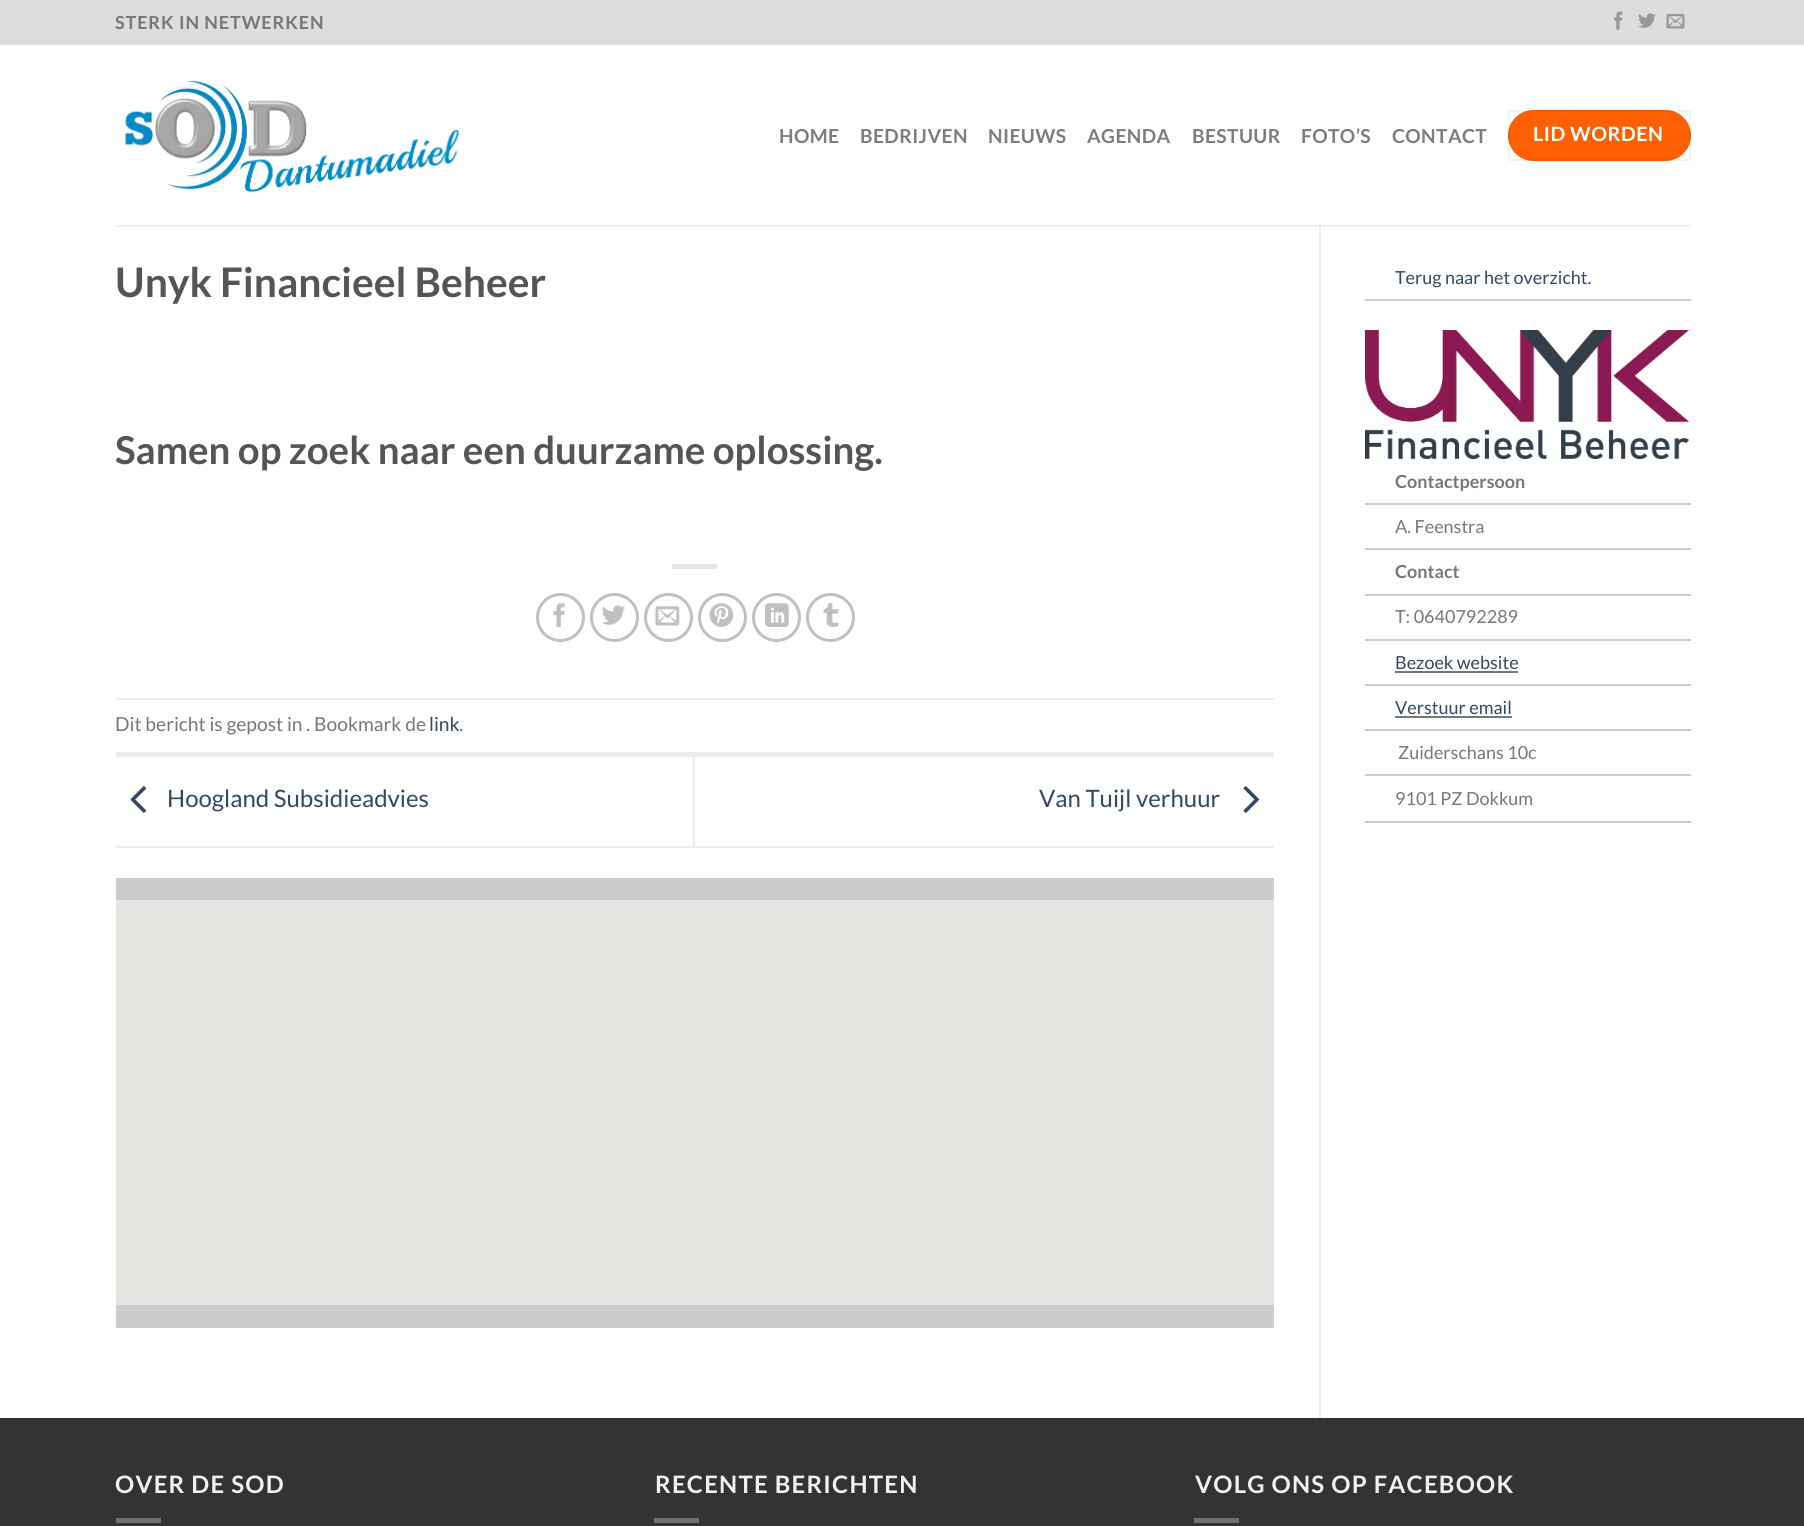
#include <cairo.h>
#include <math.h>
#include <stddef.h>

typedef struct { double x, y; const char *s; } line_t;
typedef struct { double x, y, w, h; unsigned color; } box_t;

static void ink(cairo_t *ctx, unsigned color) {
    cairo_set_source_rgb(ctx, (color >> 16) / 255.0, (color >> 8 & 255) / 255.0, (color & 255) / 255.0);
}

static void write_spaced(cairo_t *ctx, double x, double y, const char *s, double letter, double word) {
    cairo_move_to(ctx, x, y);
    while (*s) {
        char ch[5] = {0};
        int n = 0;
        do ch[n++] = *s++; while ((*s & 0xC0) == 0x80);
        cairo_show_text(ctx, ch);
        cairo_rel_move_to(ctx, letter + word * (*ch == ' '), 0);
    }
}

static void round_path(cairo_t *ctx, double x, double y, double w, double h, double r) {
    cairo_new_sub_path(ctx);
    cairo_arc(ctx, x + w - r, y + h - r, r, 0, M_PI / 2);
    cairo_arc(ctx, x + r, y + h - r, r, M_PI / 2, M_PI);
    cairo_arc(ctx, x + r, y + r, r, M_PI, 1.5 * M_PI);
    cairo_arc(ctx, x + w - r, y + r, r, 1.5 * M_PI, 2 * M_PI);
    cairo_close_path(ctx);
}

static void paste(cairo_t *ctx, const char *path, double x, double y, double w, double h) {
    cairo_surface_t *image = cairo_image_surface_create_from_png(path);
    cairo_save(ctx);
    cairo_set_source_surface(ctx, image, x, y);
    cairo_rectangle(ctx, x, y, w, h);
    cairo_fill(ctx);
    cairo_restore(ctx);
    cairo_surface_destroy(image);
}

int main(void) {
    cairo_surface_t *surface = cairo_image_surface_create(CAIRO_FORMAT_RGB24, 1804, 1526);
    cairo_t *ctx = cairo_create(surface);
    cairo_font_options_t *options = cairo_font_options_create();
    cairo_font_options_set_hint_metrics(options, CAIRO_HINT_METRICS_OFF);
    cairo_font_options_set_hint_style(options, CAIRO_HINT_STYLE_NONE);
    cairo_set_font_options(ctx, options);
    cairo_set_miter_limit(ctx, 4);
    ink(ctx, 0xFFFFFF);
    cairo_paint(ctx);
    ink(ctx, 0xF1F1F1);
    cairo_rectangle(ctx, 116, 225, 1575, 2);
    cairo_fill(ctx);
    ink(ctx, 0xDDDDDD);
    cairo_rectangle(ctx, 0, 0, 1804, 45);
    cairo_fill(ctx);
    cairo_select_font_face(ctx, "Lato", CAIRO_FONT_SLANT_NORMAL, CAIRO_FONT_WEIGHT_BOLD);
    cairo_set_font_size(ctx, 18);
    ink(ctx, 0x777777);
    write_spaced(ctx, 115, 29, "STERK IN NETWERKEN", 0.9, 0);
    paste(ctx, "media/1.png", 1614, 11, 9, 19);
    paste(ctx, "media/2.png", 1638, 13, 18, 15);
    paste(ctx, "media/3.png", 1666, 13, 19, 16);
    paste(ctx, "media/4.png", 125, 80, 335, 113);
    cairo_set_font_size(ctx, 19.25);
    ink(ctx, 0x7D7D7D);
    {
        static const line_t items[] = {
            {779, 143, "HOME"},
            {860, 143, "BEDRIJVEN"},
            {988, 143, "NIEUWS"},
            {1087, 143, "AGENDA"},
            {1192, 143, "BESTUUR"},
            {1301, 143, "FOTO’S"},
            {1392, 143, "CONTACT"},
        };
        for (size_t i = 0; i < sizeof items / sizeof *items; i++) {
            write_spaced(ctx, items[i].x, items[i].y, items[i].s, 0.4, 0);
        }
    }
    ink(ctx, 0xFC6000);
    round_path(ctx, 1508, 110, 183, 51, 25.5);
    cairo_fill(ctx);
    cairo_rectangle(ctx, 1509, 111, 181, 49);
    cairo_set_source_rgba(ctx, 0, 0, 0, 0.05);
    cairo_stroke(ctx);
    cairo_set_font_size(ctx, 19.75);
    ink(ctx, 0xFFFFFF);
    write_spaced(ctx, 1533, 141, "LID WORDEN", 0.5, 0);
    cairo_set_font_size(ctx, 40.75);
    ink(ctx, 0x555555);
    cairo_move_to(ctx, 115, 297);
    cairo_show_text(ctx, "Unyk Financieel Beheer");
    cairo_set_font_size(ctx, 38.4);
    cairo_move_to(ctx, 115, 464);
    cairo_show_text(ctx, "Samen op zoek naar een duurzame oplossing.");
    ink(ctx, 0xE6E6E6);
    cairo_rectangle(ctx, 672, 564, 45, 5);
    cairo_fill(ctx);
    cairo_arc(ctx, 560.5, 617.5, 23, 0, 2 * M_PI);
    ink(ctx, 0xC0C0C0);
    cairo_set_line_width(ctx, 3);
    cairo_stroke(ctx);
    paste(ctx, "media/5.png", 553, 603, 12, 24);
    cairo_arc(ctx, 614.5, 617.5, 23, 0, 2 * M_PI);
    cairo_stroke(ctx);
    paste(ctx, "media/6.png", 602, 605, 23, 20);
    cairo_arc(ctx, 668.5, 617.5, 23, 0, 2 * M_PI);
    cairo_stroke(ctx);
    paste(ctx, "media/7.png", 655, 606, 25, 20);
    cairo_arc(ctx, 722.5, 617.5, 23, 0, 2 * M_PI);
    cairo_stroke(ctx);
    paste(ctx, "media/8.png", 709, 603, 25, 24);
    cairo_arc(ctx, 776.5, 617.5, 23, 0, 2 * M_PI);
    cairo_stroke(ctx);
    paste(ctx, "media/9.png", 765, 603, 24, 24);
    cairo_arc(ctx, 830.5, 617.5, 23, 0, 2 * M_PI);
    cairo_stroke(ctx);
    paste(ctx, "media/10.png", 823, 603, 16, 24);
    ink(ctx, 0xECECEC);
    cairo_rectangle(ctx, 116, 698, 1158, 2);
    cairo_fill(ctx);
    cairo_rectangle(ctx, 116, 752, 1158, 5);
    cairo_fill(ctx);
    cairo_select_font_face(ctx, "Lato", CAIRO_FONT_SLANT_NORMAL, CAIRO_FONT_WEIGHT_NORMAL);
    cairo_set_font_size(ctx, 19.25);
    ink(ctx, 0x777777);
    cairo_move_to(ctx, 115, 731);
    cairo_show_text(ctx, "Dit bericht is gepost in . Bookmark de");
    ink(ctx, 0x334862);
    cairo_move_to(ctx, 429, 731);
    cairo_show_text(ctx, "link");
    ink(ctx, 0x777777);
    cairo_move_to(ctx, 459, 731);
    cairo_show_text(ctx, ".");
    ink(ctx, 0xECECEC);
    cairo_rectangle(ctx, 116, 846, 1158, 2);
    cairo_fill(ctx);
    paste(ctx, "media/11.png", 130, 786, 17, 27);
    cairo_set_font_size(ctx, 24);
    ink(ctx, 0x334862);
    cairo_move_to(ctx, 167, 807);
    cairo_show_text(ctx, "Hoogland Subsidieadvies");
    ink(ctx, 0xECECEC);
    cairo_rectangle(ctx, 693, 756, 2, 90);
    cairo_fill(ctx);
    ink(ctx, 0x334862);
    cairo_move_to(ctx, 1039, 807);
    cairo_show_text(ctx, "Van Tuijl verhuur");
    paste(ctx, "media/12.png", 1243, 786, 17, 27);
    {
        static const box_t items[] = {
            {116, 878, 1158, 22, 0xCCCCCC},
            {116, 1305, 1158, 23, 0xCCCCCC},
            {116, 900, 1158, 405, 0xE5E3DF},
            {1319, 225, 2, 1193, 0xECECEC},
            {1319, 225, 2, 2, 0xE0E0E0},
            {1365, 299, 326, 2, 0xCCCCCC},
        };
        for (size_t i = 0; i < sizeof items / sizeof *items; i++) {
            ink(ctx, items[i].color);
            cairo_rectangle(ctx, items[i].x, items[i].y, items[i].w, items[i].h);
            cairo_fill(ctx);
        }
    }
    cairo_set_font_size(ctx, 18);
    ink(ctx, 0x334862);
    cairo_move_to(ctx, 1395, 284);
    cairo_show_text(ctx, "Terug naar het overzicht.");
    paste(ctx, "media/13.png", 1365, 330, 324, 129);
    ink(ctx, 0xCCCCCC);
    cairo_rectangle(ctx, 1365, 503, 326, 2);
    cairo_fill(ctx);
    cairo_select_font_face(ctx, "Lato", CAIRO_FONT_SLANT_NORMAL, CAIRO_FONT_WEIGHT_BOLD);
    ink(ctx, 0x777777);
    cairo_move_to(ctx, 1395, 488);
    cairo_show_text(ctx, "Contactpersoon");
    ink(ctx, 0xCCCCCC);
    cairo_rectangle(ctx, 1365, 548, 326, 2);
    cairo_fill(ctx);
    cairo_select_font_face(ctx, "Lato", CAIRO_FONT_SLANT_NORMAL, CAIRO_FONT_WEIGHT_NORMAL);
    ink(ctx, 0x777777);
    cairo_move_to(ctx, 1395, 533);
    cairo_show_text(ctx, "A. Feenstra");
    ink(ctx, 0xCCCCCC);
    cairo_rectangle(ctx, 1365, 594, 326, 2);
    cairo_fill(ctx);
    cairo_select_font_face(ctx, "Lato", CAIRO_FONT_SLANT_NORMAL, CAIRO_FONT_WEIGHT_BOLD);
    ink(ctx, 0x777777);
    cairo_move_to(ctx, 1395, 578);
    cairo_show_text(ctx, "Contact");
    ink(ctx, 0xCCCCCC);
    cairo_rectangle(ctx, 1365, 639, 326, 2);
    cairo_fill(ctx);
    cairo_select_font_face(ctx, "Lato", CAIRO_FONT_SLANT_NORMAL, CAIRO_FONT_WEIGHT_NORMAL);
    ink(ctx, 0x777777);
    cairo_move_to(ctx, 1395, 623);
    cairo_show_text(ctx, "T: 0640792289");
    ink(ctx, 0xCCCCCC);
    cairo_rectangle(ctx, 1365, 684, 326, 2);
    cairo_fill(ctx);
    ink(ctx, 0x334862);
    cairo_move_to(ctx, 1395, 669);
    cairo_show_text(ctx, "Bezoek website");
    ink(ctx, 0x777777);
    cairo_rectangle(ctx, 1395, 671, 123, 2);
    cairo_fill(ctx);
    ink(ctx, 0xCCCCCC);
    cairo_rectangle(ctx, 1365, 729, 326, 2);
    cairo_fill(ctx);
    ink(ctx, 0x334862);
    cairo_move_to(ctx, 1395, 714);
    cairo_show_text(ctx, "Verstuur email");
    ink(ctx, 0x777777);
    cairo_rectangle(ctx, 1395, 716, 117, 2);
    cairo_fill(ctx);
    ink(ctx, 0xCCCCCC);
    cairo_rectangle(ctx, 1365, 774, 326, 2);
    cairo_fill(ctx);
    ink(ctx, 0x777777);
    cairo_move_to(ctx, 1398, 759);
    cairo_show_text(ctx, "Zuiderschans 10c");
    ink(ctx, 0xCCCCCC);
    cairo_rectangle(ctx, 1365, 821, 326, 2);
    cairo_fill(ctx);
    ink(ctx, 0x777777);
    cairo_move_to(ctx, 1395, 805);
    cairo_show_text(ctx, "9101 PZ Dokkum");
    ink(ctx, 0x333333);
    cairo_rectangle(ctx, 0, 1420, 1804, 106);
    cairo_fill(ctx);
    ink(ctx, 0x303030);
    cairo_rectangle(ctx, 0, 1418, 1804, 2);
    cairo_fill(ctx);
    cairo_select_font_face(ctx, "Lato", CAIRO_FONT_SLANT_NORMAL, CAIRO_FONT_WEIGHT_BOLD);
    cairo_set_font_size(ctx, 24);
    ink(ctx, 0xF1F1F1);
    write_spaced(ctx, 115, 1493, "OVER DE SOD", 1.2, 0);
    ink(ctx, 0x707070);
    cairo_rectangle(ctx, 116, 1518, 45, 5);
    cairo_fill(ctx);
    ink(ctx, 0xF1F1F1);
    write_spaced(ctx, 655, 1493, "RECENTE BERICHTEN", 1.2, 0);
    ink(ctx, 0x707070);
    cairo_rectangle(ctx, 654, 1518, 45, 5);
    cairo_fill(ctx);
    ink(ctx, 0xF1F1F1);
    write_spaced(ctx, 1195, 1493, "VOLG ONS OP FACEBOOK", 1.2, 0);
    ink(ctx, 0x707070);
    cairo_rectangle(ctx, 1194, 1518, 45, 5);
    cairo_fill(ctx);
    cairo_surface_write_to_png(surface, "image.png");
    cairo_font_options_destroy(options);
    cairo_destroy(ctx);
    cairo_surface_destroy(surface);
    return 0;
}
